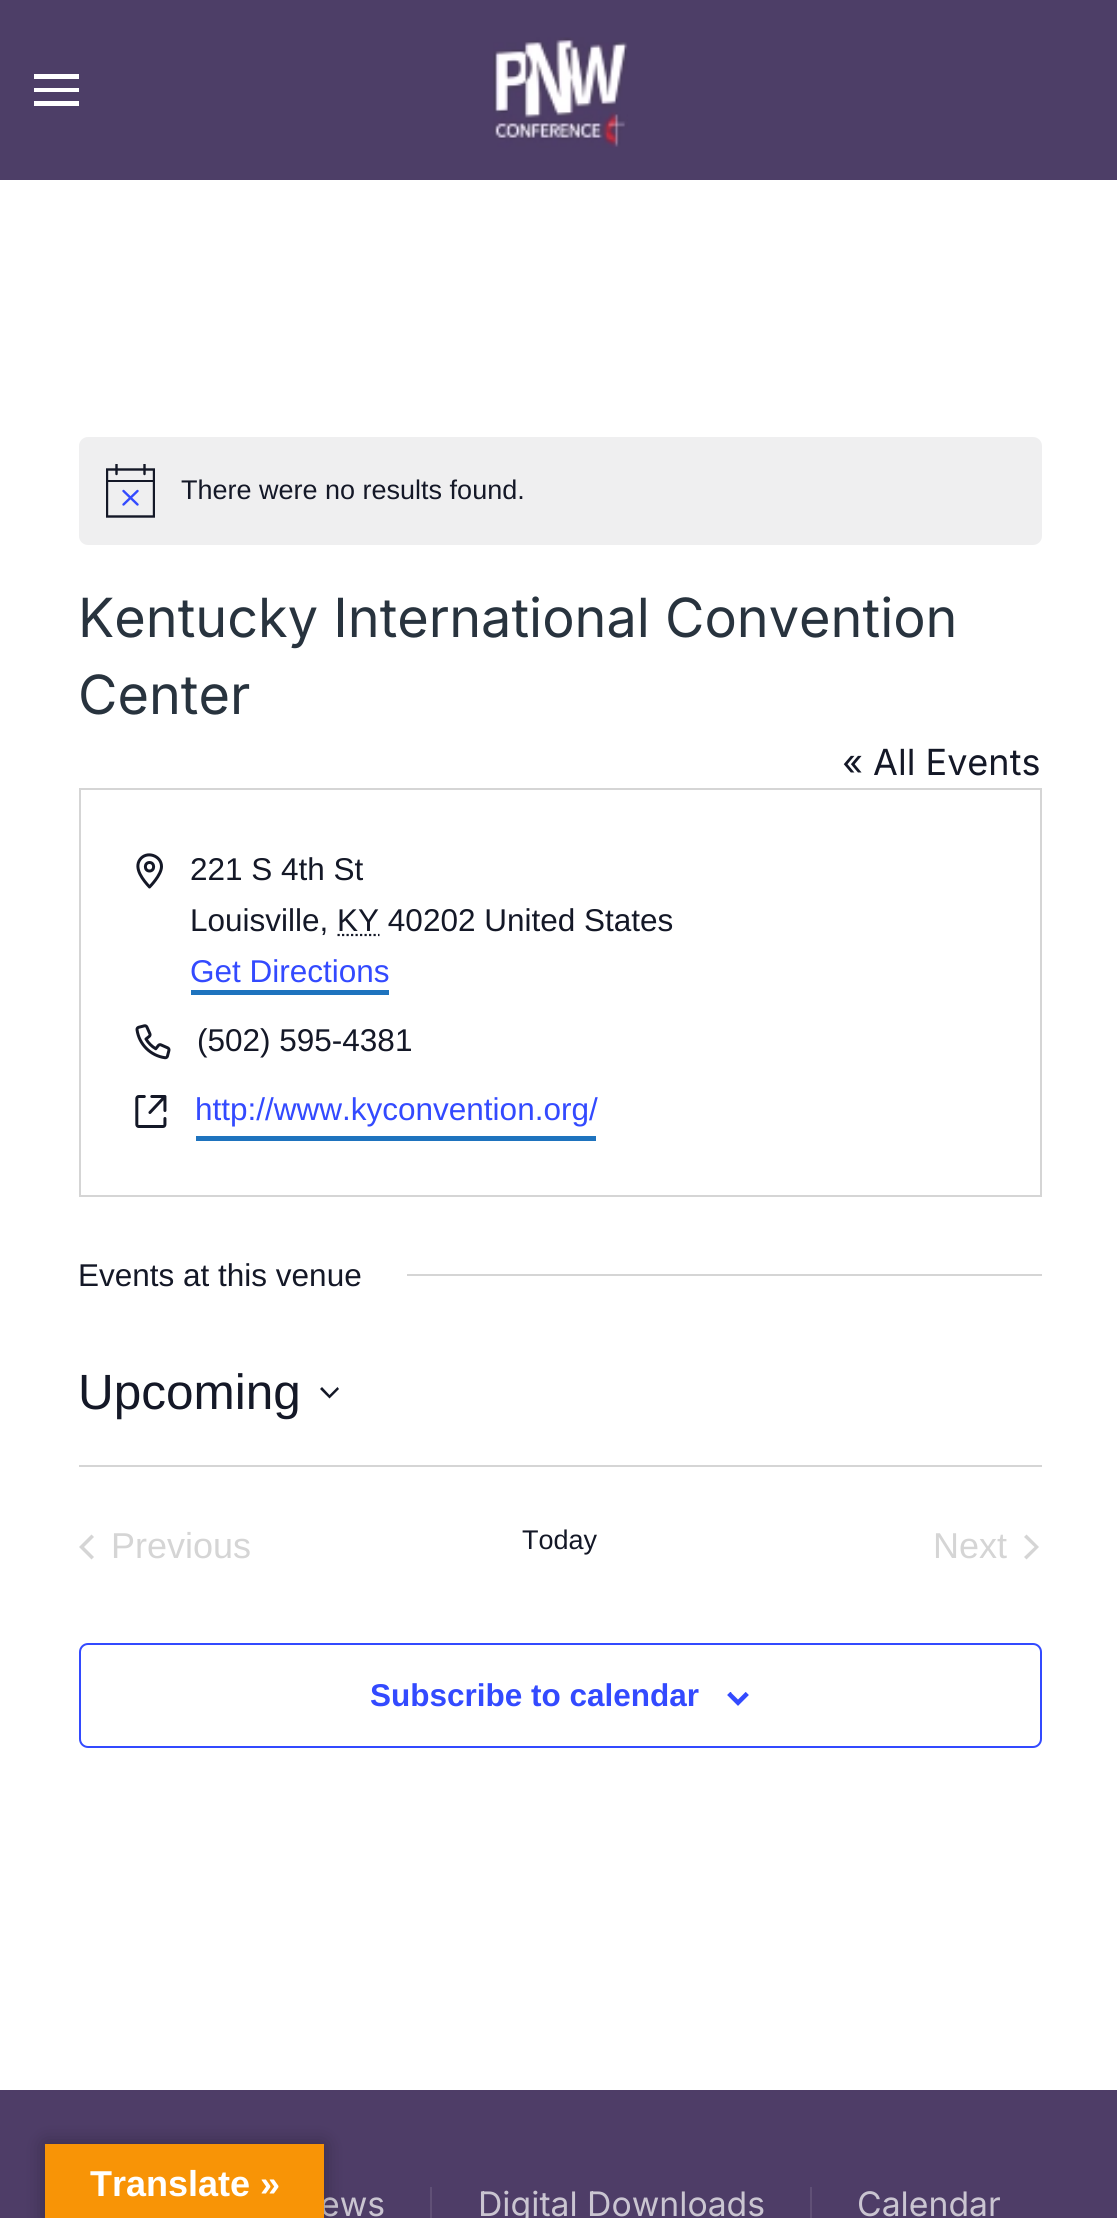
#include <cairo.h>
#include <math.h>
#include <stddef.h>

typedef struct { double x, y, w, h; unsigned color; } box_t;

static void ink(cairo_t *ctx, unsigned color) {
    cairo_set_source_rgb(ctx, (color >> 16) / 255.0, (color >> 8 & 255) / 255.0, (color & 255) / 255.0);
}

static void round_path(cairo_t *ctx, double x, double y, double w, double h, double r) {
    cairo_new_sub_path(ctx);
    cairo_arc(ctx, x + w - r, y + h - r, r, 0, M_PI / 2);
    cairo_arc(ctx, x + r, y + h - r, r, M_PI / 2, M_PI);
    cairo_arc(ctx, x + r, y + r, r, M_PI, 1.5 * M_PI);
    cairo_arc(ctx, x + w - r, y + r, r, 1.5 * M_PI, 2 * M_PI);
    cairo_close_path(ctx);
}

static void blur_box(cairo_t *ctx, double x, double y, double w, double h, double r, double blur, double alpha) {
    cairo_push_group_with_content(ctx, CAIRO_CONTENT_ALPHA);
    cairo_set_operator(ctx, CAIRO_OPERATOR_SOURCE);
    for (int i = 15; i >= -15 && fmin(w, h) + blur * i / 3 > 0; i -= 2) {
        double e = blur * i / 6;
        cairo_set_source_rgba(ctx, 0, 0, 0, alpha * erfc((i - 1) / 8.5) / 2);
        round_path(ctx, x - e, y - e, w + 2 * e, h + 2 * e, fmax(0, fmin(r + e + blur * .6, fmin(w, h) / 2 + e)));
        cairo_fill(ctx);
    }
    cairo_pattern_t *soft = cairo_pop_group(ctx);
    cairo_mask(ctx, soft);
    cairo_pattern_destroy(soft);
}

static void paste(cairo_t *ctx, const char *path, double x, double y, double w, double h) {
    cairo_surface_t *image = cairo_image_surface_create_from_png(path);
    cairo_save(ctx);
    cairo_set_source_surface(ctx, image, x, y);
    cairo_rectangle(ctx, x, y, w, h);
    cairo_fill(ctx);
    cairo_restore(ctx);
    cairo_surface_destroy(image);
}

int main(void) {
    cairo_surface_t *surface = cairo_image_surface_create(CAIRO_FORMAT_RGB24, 1117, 2218);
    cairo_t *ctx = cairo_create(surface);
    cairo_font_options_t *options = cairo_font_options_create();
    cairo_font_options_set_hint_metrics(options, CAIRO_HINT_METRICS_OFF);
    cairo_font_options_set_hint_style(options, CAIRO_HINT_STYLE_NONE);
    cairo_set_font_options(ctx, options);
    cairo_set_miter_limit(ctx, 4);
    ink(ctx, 0xFFFFFF);
    cairo_paint(ctx);
    {
        static const box_t items[] = {
            {0, 0, 1117, 180, 0x4D3E67},
            {34, 74, 45, 5, 0xFFFFFF},
            {34, 88, 45, 4, 0xFFFFFF},
            {34, 101, 45, 5, 0xFFFFFF},
        };
        for (size_t i = 0; i < sizeof items / sizeof *items; i++) {
            ink(ctx, items[i].color);
            cairo_rectangle(ctx, items[i].x, items[i].y, items[i].w, items[i].h);
            cairo_fill(ctx);
        }
    }
    paste(ctx, "media/1.png", 493, 37, 135, 111);
    ink(ctx, 0xEFEFF0);
    round_path(ctx, 79, 437, 963, 108, 9);
    cairo_fill(ctx);
    cairo_save(ctx);
    cairo_rectangle(ctx, 106, 464, 49, 54);
    cairo_clip(ctx);
    cairo_new_path(ctx);
    cairo_move_to(ctx, 107, 469.5);
    cairo_line_to(ctx, 154, 469.5);
    cairo_line_to(ctx, 154, 516.5);
    cairo_line_to(ctx, 107, 516.5);
    cairo_close_path(ctx);
    ink(ctx, 0x141827);
    cairo_set_line_width(ctx, 2.4);
    cairo_stroke(ctx);
    cairo_restore(ctx);
    cairo_new_path(ctx);
    cairo_move_to(ctx, 123.5, 491);
    cairo_line_to(ctx, 137.5, 504.5);
    cairo_move_to(ctx, 137.5, 491);
    cairo_line_to(ctx, 123.5, 504.5);
    ink(ctx, 0x334AFF);
    cairo_set_line_width(ctx, 2.4);
    cairo_set_line_cap(ctx, CAIRO_LINE_CAP_ROUND);
    cairo_stroke(ctx);
    cairo_save(ctx);
    cairo_rectangle(ctx, 106, 464, 49, 54);
    cairo_clip(ctx);
    cairo_new_path(ctx);
    cairo_move_to(ctx, 116.5, 464.5);
    cairo_line_to(ctx, 116.5, 474);
    cairo_move_to(ctx, 144.5, 464.5);
    cairo_line_to(ctx, 144.5, 474);
    ink(ctx, 0x141827);
    cairo_stroke(ctx);
    cairo_restore(ctx);
    ink(ctx, 0x141827);
    cairo_rectangle(ctx, 106, 480, 49, 2);
    cairo_fill(ctx);
    cairo_select_font_face(ctx, "Liberation Sans", CAIRO_FONT_SLANT_NORMAL, CAIRO_FONT_WEIGHT_NORMAL);
    cairo_set_font_size(ctx, 27);
    cairo_move_to(ctx, 181, 499);
    cairo_show_text(ctx, "There were no results found.");
    cairo_select_font_face(ctx, "Inter", CAIRO_FONT_SLANT_NORMAL, CAIRO_FONT_WEIGHT_NORMAL);
    cairo_set_font_size(ctx, 54);
    ink(ctx, 0x28333E);
    cairo_move_to(ctx, 78, 637);
    cairo_show_text(ctx, "Kentucky International Convention");
    cairo_move_to(ctx, 78, 714);
    cairo_show_text(ctx, "Center");
    cairo_set_font_size(ctx, 36);
    ink(ctx, 0x141827);
    cairo_move_to(ctx, 842, 775);
    cairo_show_text(ctx, "« All Events");
    cairo_rectangle(ctx, 80, 789, 961, 407);
    ink(ctx, 0xD5D5D5);
    cairo_set_line_width(ctx, 2);
    cairo_set_line_cap(ctx, CAIRO_LINE_CAP_BUTT);
    cairo_stroke(ctx);
    cairo_new_path(ctx);
    cairo_move_to(ctx, 161.5, 866.5);
    cairo_curve_to(ctx, 161.5, 875, 149.5, 887, 149.5, 887);
    cairo_curve_to(ctx, 143.5, 880.5, 133.5, 868.5, 140, 859.5);
    cairo_curve_to(ctx, 146.5, 850.5, 161.5, 855.5, 161.5, 866.5);
    cairo_close_path(ctx);
    cairo_move_to(ctx, 149.5, 871);
    cairo_curve_to(ctx, 155, 871, 155, 862.5, 149.5, 862.5);
    cairo_curve_to(ctx, 144, 862.5, 144, 871, 149.5, 871);
    cairo_close_path(ctx);
    ink(ctx, 0x141827);
    cairo_set_line_width(ctx, 3);
    cairo_set_line_cap(ctx, CAIRO_LINE_CAP_ROUND);
    cairo_set_line_join(ctx, CAIRO_LINE_JOIN_ROUND);
    cairo_stroke(ctx);
    cairo_select_font_face(ctx, "Liberation Sans", CAIRO_FONT_SLANT_NORMAL, CAIRO_FONT_WEIGHT_NORMAL);
    cairo_set_font_size(ctx, 31.5);
    cairo_move_to(ctx, 190, 880);
    cairo_show_text(ctx, "221 S 4th St");
    cairo_move_to(ctx, 190, 931);
    cairo_show_text(ctx, "Louisville, KY 40202 United States");
    cairo_new_path(ctx);
    cairo_move_to(ctx, 337.5, 935);
    cairo_line_to(ctx, 379.5, 935);
    cairo_set_line_width(ctx, 2.2);
    cairo_set_line_cap(ctx, CAIRO_LINE_CAP_BUTT);
    cairo_set_line_join(ctx, CAIRO_LINE_JOIN_MITER);
    cairo_set_dash(ctx, (double[]){2.25, 2.25}, 2, 0);
    cairo_stroke(ctx);
    ink(ctx, 0x334AFF);
    cairo_move_to(ctx, 190, 982);
    cairo_show_text(ctx, "Get Directions");
    ink(ctx, 0x1E73BE);
    cairo_rectangle(ctx, 191, 990, 198, 5);
    cairo_fill(ctx);
    paste(ctx, "media/2.png", 135, 1024, 36, 36);
    ink(ctx, 0x141827);
    cairo_move_to(ctx, 197, 1051);
    cairo_show_text(ctx, "(502) 595-4381");
    paste(ctx, "media/3.png", 135, 1095, 32, 33);
    ink(ctx, 0x1E73BE);
    cairo_rectangle(ctx, 196, 1136, 400, 5);
    cairo_fill(ctx);
    ink(ctx, 0x334AFF);
    cairo_move_to(ctx, 195, 1120);
    cairo_show_text(ctx, "http://www.kyconvention.org/");
    ink(ctx, 0x141827);
    cairo_move_to(ctx, 78, 1286);
    cairo_show_text(ctx, "Events at this venue");
    ink(ctx, 0xD5D5D5);
    cairo_rectangle(ctx, 407, 1274, 635, 2);
    cairo_fill(ctx);
    cairo_set_font_size(ctx, 49.5);
    ink(ctx, 0x141827);
    cairo_move_to(ctx, 78, 1409);
    cairo_show_text(ctx, "Upcoming");
    cairo_set_fill_rule(ctx, CAIRO_FILL_RULE_EVEN_ODD);
    cairo_new_path(ctx);
    cairo_move_to(ctx, 322, 1387);
    cairo_line_to(ctx, 329.5, 1395);
    cairo_line_to(ctx, 337.5, 1387);
    cairo_line_to(ctx, 339, 1389);
    cairo_line_to(ctx, 329.5, 1398.5);
    cairo_line_to(ctx, 320, 1389);
    cairo_close_path(ctx);
    cairo_fill(ctx);
    ink(ctx, 0xD5D5D5);
    cairo_rectangle(ctx, 79, 1465, 963, 2);
    cairo_fill(ctx);
    cairo_set_fill_rule(ctx, CAIRO_FILL_RULE_WINDING);
    cairo_new_path(ctx);
    cairo_move_to(ctx, 94, 1557);
    cairo_line_to(ctx, 91.5, 1559.5);
    cairo_line_to(ctx, 79, 1547);
    cairo_line_to(ctx, 91.5, 1534.5);
    cairo_line_to(ctx, 94, 1537);
    cairo_line_to(ctx, 84, 1547);
    cairo_close_path(ctx);
    cairo_fill(ctx);
    cairo_set_font_size(ctx, 36);
    cairo_move_to(ctx, 111, 1558);
    cairo_show_text(ctx, "Previous");
    cairo_set_font_size(ctx, 27);
    ink(ctx, 0x141827);
    cairo_move_to(ctx, 522, 1549);
    cairo_show_text(ctx, "Today");
    cairo_set_font_size(ctx, 36);
    ink(ctx, 0xD5D5D5);
    cairo_move_to(ctx, 933, 1558);
    cairo_show_text(ctx, "Next");
    cairo_new_path(ctx);
    cairo_move_to(ctx, 1024, 1537);
    cairo_line_to(ctx, 1026.5, 1534.5);
    cairo_line_to(ctx, 1039, 1547);
    cairo_line_to(ctx, 1026.5, 1559.5);
    cairo_line_to(ctx, 1024, 1557);
    cairo_line_to(ctx, 1034.5, 1547);
    cairo_close_path(ctx);
    cairo_fill(ctx);
    round_path(ctx, 80, 1644, 961, 103, 8);
    ink(ctx, 0x334AFF);
    cairo_set_line_width(ctx, 2);
    cairo_set_dash(ctx, NULL, 0, 0);
    cairo_stroke(ctx);
    cairo_select_font_face(ctx, "Liberation Sans", CAIRO_FONT_SLANT_NORMAL, CAIRO_FONT_WEIGHT_BOLD);
    cairo_set_font_size(ctx, 31.5);
    cairo_move_to(ctx, 370, 1706);
    cairo_show_text(ctx, "Subscribe to calendar");
    paste(ctx, "media/4.png", 727, 1692, 22, 14);
    ink(ctx, 0x4E3D67);
    cairo_rectangle(ctx, 0, 2090, 1117, 128);
    cairo_fill(ctx);
    cairo_select_font_face(ctx, "Inter", CAIRO_FONT_SLANT_NORMAL, CAIRO_FONT_WEIGHT_NORMAL);
    cairo_set_font_size(ctx, 33.75);
    ink(ctx, 0xCAC5D1);
    cairo_move_to(ctx, 320, 2216);
    cairo_show_text(ctx, "ews");
    ink(ctx, 0x605076);
    cairo_rectangle(ctx, 430, 2187, 2, 31);
    cairo_fill(ctx);
    ink(ctx, 0xCAC5D1);
    cairo_move_to(ctx, 478, 2216);
    cairo_show_text(ctx, "Digital Downloads");
    ink(ctx, 0x605076);
    cairo_rectangle(ctx, 810, 2187, 2, 31);
    cairo_fill(ctx);
    ink(ctx, 0xCAC5D1);
    cairo_move_to(ctx, 857, 2216);
    cairo_show_text(ctx, "Calendar");
    ink(ctx, 0x000000);
    blur_box(ctx, 45, 2144, 279, 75, 0, 10, 0.3);
    ink(ctx, 0xF89406);
    cairo_rectangle(ctx, 45, 2144, 279, 74);
    cairo_fill(ctx);
    cairo_select_font_face(ctx, "Liberation Sans", CAIRO_FONT_SLANT_NORMAL, CAIRO_FONT_WEIGHT_BOLD);
    cairo_set_font_size(ctx, 36);
    ink(ctx, 0xFFFFFF);
    cairo_move_to(ctx, 90, 2196);
    cairo_show_text(ctx, "Translate »");
    cairo_surface_write_to_png(surface, "image.png");
    cairo_font_options_destroy(options);
    cairo_destroy(ctx);
    cairo_surface_destroy(surface);
    return 0;
}
